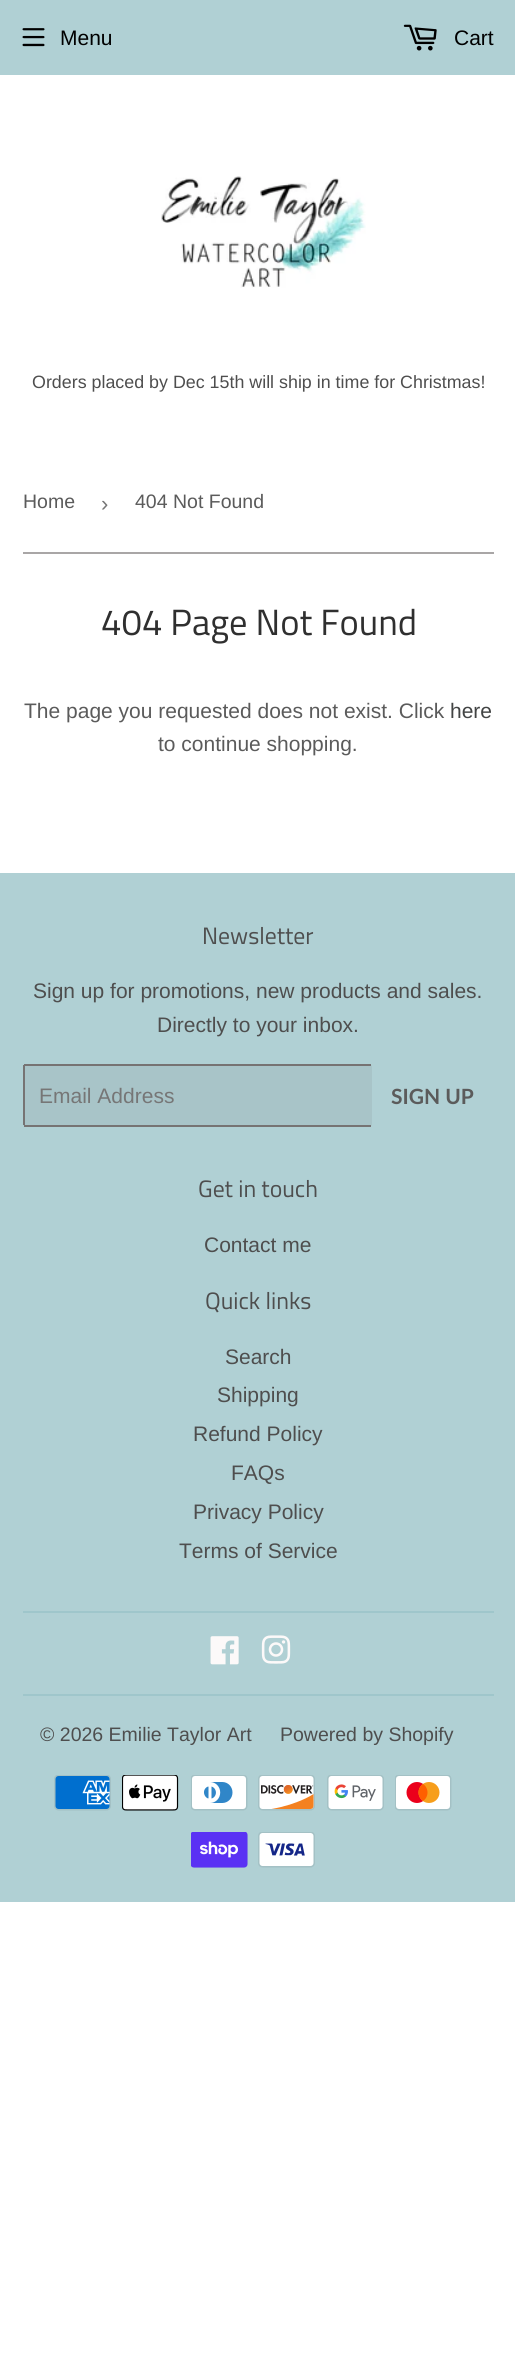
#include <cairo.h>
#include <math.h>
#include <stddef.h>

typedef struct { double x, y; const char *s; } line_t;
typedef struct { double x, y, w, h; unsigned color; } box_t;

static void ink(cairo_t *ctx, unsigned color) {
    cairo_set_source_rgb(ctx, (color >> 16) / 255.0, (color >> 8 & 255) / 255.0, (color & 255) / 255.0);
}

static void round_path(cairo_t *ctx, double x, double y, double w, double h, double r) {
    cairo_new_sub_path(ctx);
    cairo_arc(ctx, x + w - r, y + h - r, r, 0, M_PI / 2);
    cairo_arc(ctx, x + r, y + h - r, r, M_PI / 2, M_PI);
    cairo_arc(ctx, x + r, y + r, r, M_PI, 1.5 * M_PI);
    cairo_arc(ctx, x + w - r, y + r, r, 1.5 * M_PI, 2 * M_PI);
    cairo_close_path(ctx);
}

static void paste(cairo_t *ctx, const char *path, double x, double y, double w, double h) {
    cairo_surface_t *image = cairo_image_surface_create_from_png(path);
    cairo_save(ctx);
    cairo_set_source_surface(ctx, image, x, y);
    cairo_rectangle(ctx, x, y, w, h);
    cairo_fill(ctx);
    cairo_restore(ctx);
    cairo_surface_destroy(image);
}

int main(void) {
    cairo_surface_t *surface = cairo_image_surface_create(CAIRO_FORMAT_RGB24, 515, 2364);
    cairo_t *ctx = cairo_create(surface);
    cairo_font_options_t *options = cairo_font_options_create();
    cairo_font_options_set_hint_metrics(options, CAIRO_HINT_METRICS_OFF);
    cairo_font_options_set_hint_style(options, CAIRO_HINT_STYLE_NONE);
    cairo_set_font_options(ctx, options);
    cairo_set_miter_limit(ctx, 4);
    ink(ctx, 0xFFFFFF);
    cairo_paint(ctx);
    ink(ctx, 0xB0D0D4);
    cairo_rectangle(ctx, 0, 0, 515, 75);
    cairo_fill(ctx);
    paste(ctx, "media/1.png", 22, 28, 23, 19);
    cairo_select_font_face(ctx, "Liberation Sans", CAIRO_FONT_SLANT_NORMAL, CAIRO_FONT_WEIGHT_NORMAL);
    cairo_set_font_size(ctx, 21);
    ink(ctx, 0x000000);
    cairo_move_to(ctx, 60, 45);
    cairo_show_text(ctx, "Menu");
    paste(ctx, "media/2.png", 403, 24, 34, 27);
    cairo_move_to(ctx, 454, 45);
    cairo_show_text(ctx, "Cart");
    paste(ctx, "media/3.png", 161, 176, 205, 112);
    cairo_set_font_size(ctx, 17.85);
    ink(ctx, 0x4E4E4E);
    cairo_move_to(ctx, 32, 388);
    cairo_show_text(ctx, "Orders placed by Dec 15th will ship in time for Christmas!");
    ink(ctx, 0xA9A6A6);
    cairo_rectangle(ctx, 23, 552, 471, 2);
    cairo_fill(ctx);
    cairo_set_font_size(ctx, 19.5);
    ink(ctx, 0x5B5B5B);
    cairo_move_to(ctx, 23, 508);
    cairo_show_text(ctx, "Home");
    cairo_set_font_size(ctx, 22);
    ink(ctx, 0x767676);
    cairo_move_to(ctx, 101, 511);
    cairo_show_text(ctx, "›");
    cairo_set_font_size(ctx, 19.5);
    ink(ctx, 0x5B5B5B);
    cairo_move_to(ctx, 135, 508);
    cairo_show_text(ctx, "404 Not Found");
    cairo_select_font_face(ctx, "Titillium Web", CAIRO_FONT_SLANT_NORMAL, CAIRO_FONT_WEIGHT_NORMAL);
    cairo_set_font_size(ctx, 36.5);
    ink(ctx, 0x2F2F2F);
    cairo_move_to(ctx, 101, 635);
    cairo_show_text(ctx, "404 Page Not Found");
    cairo_select_font_face(ctx, "Liberation Sans", CAIRO_FONT_SLANT_NORMAL, CAIRO_FONT_WEIGHT_NORMAL);
    cairo_set_font_size(ctx, 21);
    ink(ctx, 0x5B5B5B);
    cairo_move_to(ctx, 24, 718);
    cairo_show_text(ctx, "The page you requested does not exist. Click");
    ink(ctx, 0x424444);
    cairo_move_to(ctx, 450, 718);
    cairo_show_text(ctx, "here");
    ink(ctx, 0x5B5B5B);
    cairo_move_to(ctx, 158, 751);
    cairo_show_text(ctx, "to continue shopping.");
    ink(ctx, 0xB0D0D4);
    cairo_rectangle(ctx, 0, 873, 515, 1029);
    cairo_fill(ctx);
    cairo_select_font_face(ctx, "Titillium Web", CAIRO_FONT_SLANT_NORMAL, CAIRO_FONT_WEIGHT_NORMAL);
    cairo_set_font_size(ctx, 23.75);
    ink(ctx, 0x4E4E4E);
    cairo_move_to(ctx, 202, 944);
    cairo_show_text(ctx, "Newsletter");
    cairo_select_font_face(ctx, "Liberation Sans", CAIRO_FONT_SLANT_NORMAL, CAIRO_FONT_WEIGHT_NORMAL);
    cairo_set_font_size(ctx, 21);
    cairo_move_to(ctx, 33, 998);
    cairo_show_text(ctx, "Sign up for promotions, new products and sales.");
    cairo_move_to(ctx, 157, 1032);
    cairo_show_text(ctx, "Directly to your inbox.");
    ink(ctx, 0xA8C4C8);
    round_path(ctx, 23, 1064, 349, 63, 3);
    cairo_fill(ctx);
    {
        static const box_t items[] = {
            {24, 1064, 347, 2, 0x767373},
            {24, 1125, 347, 2, 0x767373},
            {23, 1065, 2, 60, 0x767373},
        };
        for (size_t i = 0; i < sizeof items / sizeof *items; i++) {
            ink(ctx, items[i].color);
            cairo_rectangle(ctx, items[i].x, items[i].y, items[i].w, items[i].h);
            cairo_fill(ctx);
        }
    }
    ink(ctx, 0x767676);
    cairo_move_to(ctx, 39, 1103);
    cairo_show_text(ctx, "Email Address");
    cairo_select_font_face(ctx, "Lato", CAIRO_FONT_SLANT_NORMAL, CAIRO_FONT_WEIGHT_BOLD);
    ink(ctx, 0x5B5B5B);
    cairo_move_to(ctx, 391, 1104);
    cairo_show_text(ctx, "SIGN UP");
    cairo_select_font_face(ctx, "Titillium Web", CAIRO_FONT_SLANT_NORMAL, CAIRO_FONT_WEIGHT_NORMAL);
    cairo_set_font_size(ctx, 23.75);
    ink(ctx, 0x4E4E4E);
    cairo_move_to(ctx, 198, 1197);
    cairo_show_text(ctx, "Get in touch");
    cairo_select_font_face(ctx, "Liberation Sans", CAIRO_FONT_SLANT_NORMAL, CAIRO_FONT_WEIGHT_NORMAL);
    cairo_set_font_size(ctx, 21);
    cairo_move_to(ctx, 204, 1252);
    cairo_show_text(ctx, "Contact me");
    cairo_select_font_face(ctx, "Titillium Web", CAIRO_FONT_SLANT_NORMAL, CAIRO_FONT_WEIGHT_NORMAL);
    cairo_set_font_size(ctx, 23.75);
    cairo_move_to(ctx, 205, 1309);
    cairo_show_text(ctx, "Quick links");
    cairo_select_font_face(ctx, "Liberation Sans", CAIRO_FONT_SLANT_NORMAL, CAIRO_FONT_WEIGHT_NORMAL);
    cairo_set_font_size(ctx, 21);
    {
        static const line_t items[] = {
            {225, 1364, "Search"},
            {217, 1402, "Shipping"},
            {193, 1441, "Refund Policy"},
            {231, 1480, "FAQs"},
            {193, 1519, "Privacy Policy"},
            {179, 1558, "Terms of Service"},
        };
        for (size_t i = 0; i < sizeof items / sizeof *items; i++) {
            cairo_move_to(ctx, items[i].x, items[i].y);
            cairo_show_text(ctx, items[i].s);
        }
    }
    ink(ctx, 0x9FC6CB);
    cairo_rectangle(ctx, 23, 1611, 471, 2);
    cairo_fill(ctx);
    paste(ctx, "media/4.png", 210, 1636, 29, 29);
    paste(ctx, "media/5.png", 261, 1635, 30, 29);
    cairo_rectangle(ctx, 23, 1694, 471, 2);
    cairo_fill(ctx);
    cairo_set_font_size(ctx, 19.5);
    ink(ctx, 0x4E4E4E);
    cairo_move_to(ctx, 40, 1741);
    cairo_show_text(ctx, "© 2026 Emilie Taylor Art");
    cairo_move_to(ctx, 280, 1741);
    cairo_show_text(ctx, "Powered by Shopify");
    paste(ctx, "media/6.png", 54, 1775, 57, 36);
    paste(ctx, "media/7.png", 122, 1775, 57, 36);
    paste(ctx, "media/8.png", 191, 1775, 57, 36);
    paste(ctx, "media/9.png", 258, 1775, 57, 36);
    paste(ctx, "media/10.png", 327, 1775, 57, 36);
    paste(ctx, "media/11.png", 395, 1775, 57, 36);
    paste(ctx, "media/12.png", 191, 1832, 57, 36);
    paste(ctx, "media/13.png", 258, 1832, 57, 36);
    cairo_surface_write_to_png(surface, "image.png");
    cairo_font_options_destroy(options);
    cairo_destroy(ctx);
    cairo_surface_destroy(surface);
    return 0;
}
